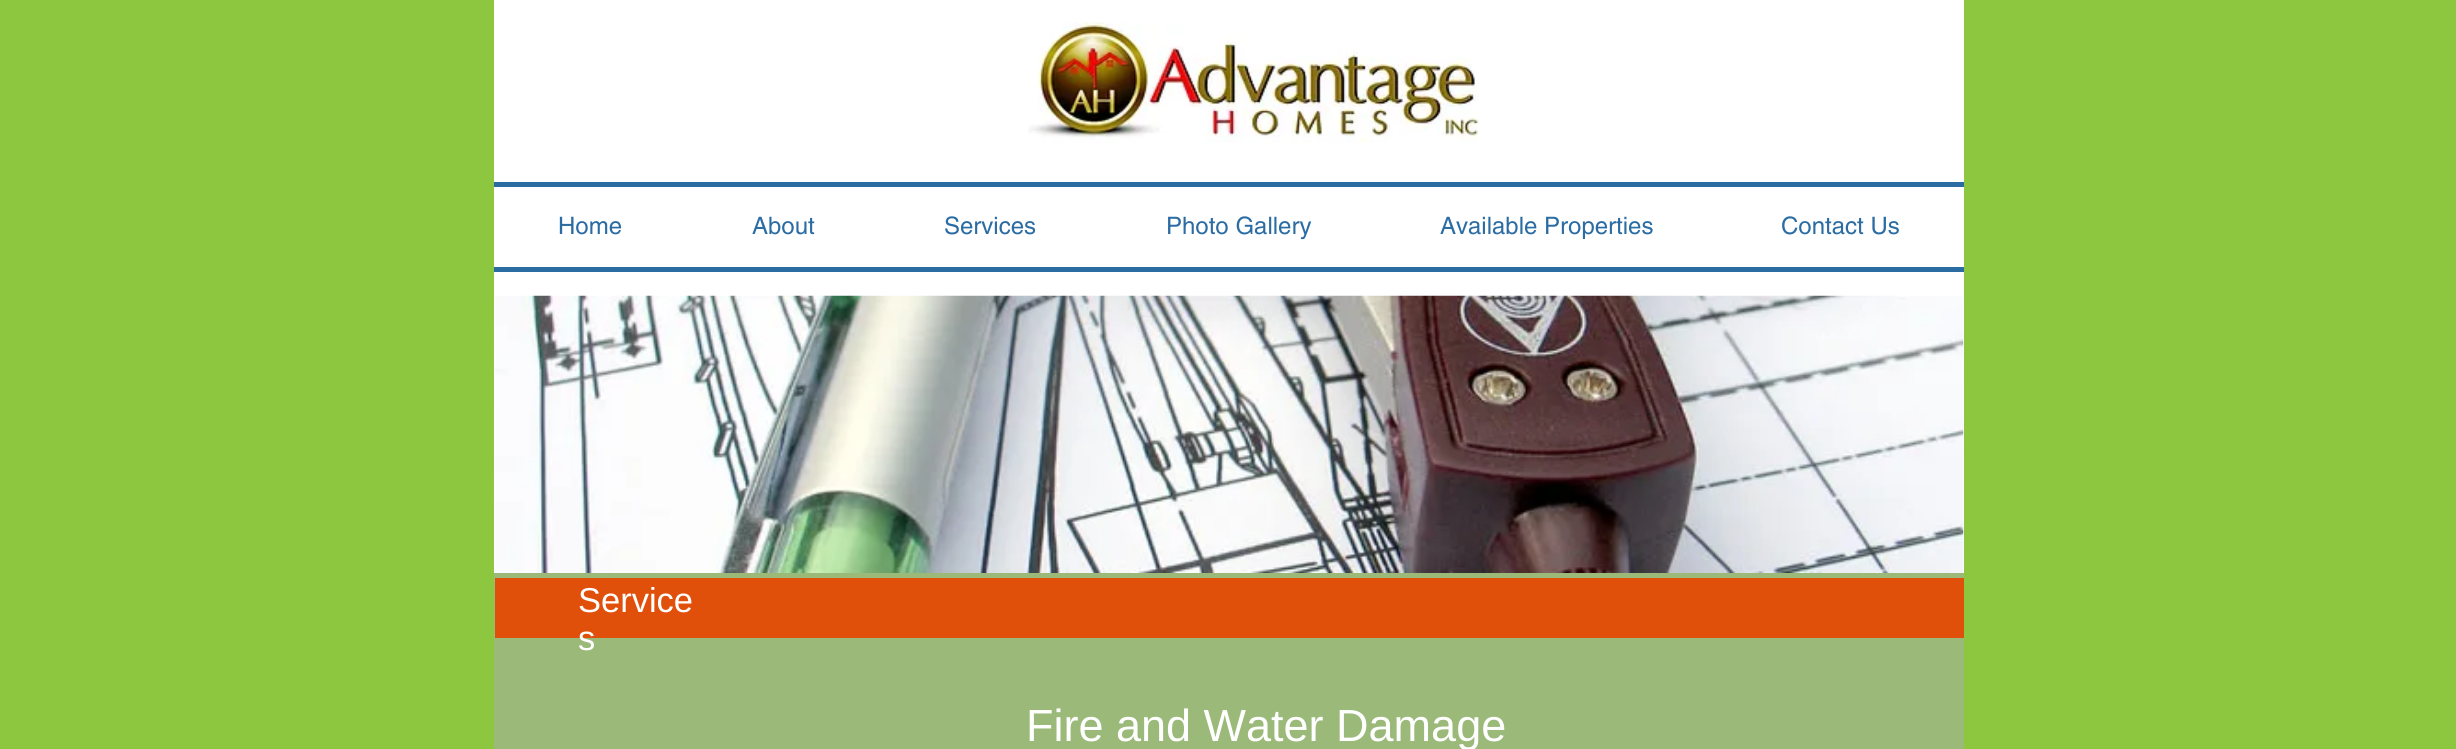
#include <cairo.h>
#include <math.h>
#include <stddef.h>

typedef struct { double x, y; const char *s; } line_t;

static void ink(cairo_t *ctx, unsigned color) {
    cairo_set_source_rgb(ctx, (color >> 16) / 255.0, (color >> 8 & 255) / 255.0, (color & 255) / 255.0);
}

static void paste(cairo_t *ctx, const char *path, double x, double y, double w, double h) {
    cairo_surface_t *image = cairo_image_surface_create_from_png(path);
    cairo_save(ctx);
    cairo_set_source_surface(ctx, image, x, y);
    cairo_rectangle(ctx, x, y, w, h);
    cairo_fill(ctx);
    cairo_restore(ctx);
    cairo_surface_destroy(image);
}

int main(void) {
    cairo_surface_t *surface = cairo_image_surface_create(CAIRO_FORMAT_RGB24, 2456, 749);
    cairo_t *ctx = cairo_create(surface);
    cairo_font_options_t *options = cairo_font_options_create();
    cairo_font_options_set_hint_metrics(options, CAIRO_HINT_METRICS_OFF);
    cairo_font_options_set_hint_style(options, CAIRO_HINT_STYLE_NONE);
    cairo_set_font_options(ctx, options);
    cairo_set_miter_limit(ctx, 4);
    ink(ctx, 0x8DC73F);
    cairo_paint(ctx);
    ink(ctx, 0xFFFFFF);
    cairo_rectangle(ctx, 494, 0, 1470, 573);
    cairo_fill(ctx);
    paste(ctx, "media/1.png", 1028, 22, 451, 121);
    ink(ctx, 0x2B6CA3);
    cairo_rectangle(ctx, 494, 182, 1470, 5);
    cairo_fill(ctx);
    cairo_rectangle(ctx, 494, 267, 1470, 5);
    cairo_fill(ctx);
    cairo_select_font_face(ctx, "helvetica", CAIRO_FONT_SLANT_NORMAL, CAIRO_FONT_WEIGHT_NORMAL);
    cairo_set_font_size(ctx, 24);
    {
        static const line_t items[] = {
            {558, 234, "Home"},
            {752, 234, "About"},
            {944, 234, "Services"},
            {1166, 234, "Photo Gallery"},
            {1440, 234, "Available Properties"},
            {1781, 234, "Contact Us"},
        };
        for (size_t i = 0; i < sizeof items / sizeof *items; i++) {
            cairo_move_to(ctx, items[i].x, items[i].y);
            cairo_show_text(ctx, items[i].s);
        }
    }
    paste(ctx, "media/2.png", 495, 295, 1469, 278);
    ink(ctx, 0x9BB979);
    cairo_rectangle(ctx, 494, 573, 1470, 176);
    cairo_fill(ctx);
    ink(ctx, 0xE0500B);
    cairo_rectangle(ctx, 495, 578, 1469, 60);
    cairo_fill(ctx);
    cairo_select_font_face(ctx, "Liberation Sans", CAIRO_FONT_SLANT_NORMAL, CAIRO_FONT_WEIGHT_NORMAL);
    cairo_set_font_size(ctx, 34.5);
    ink(ctx, 0xFFFFFF);
    cairo_move_to(ctx, 578, 612);
    cairo_show_text(ctx, "Service");
    cairo_move_to(ctx, 578, 650);
    cairo_show_text(ctx, "s");
    cairo_set_font_size(ctx, 45);
    cairo_move_to(ctx, 1026, 741);
    cairo_show_text(ctx, "Fire and Water Damage");
    cairo_surface_write_to_png(surface, "image.png");
    cairo_font_options_destroy(options);
    cairo_destroy(ctx);
    cairo_surface_destroy(surface);
    return 0;
}
